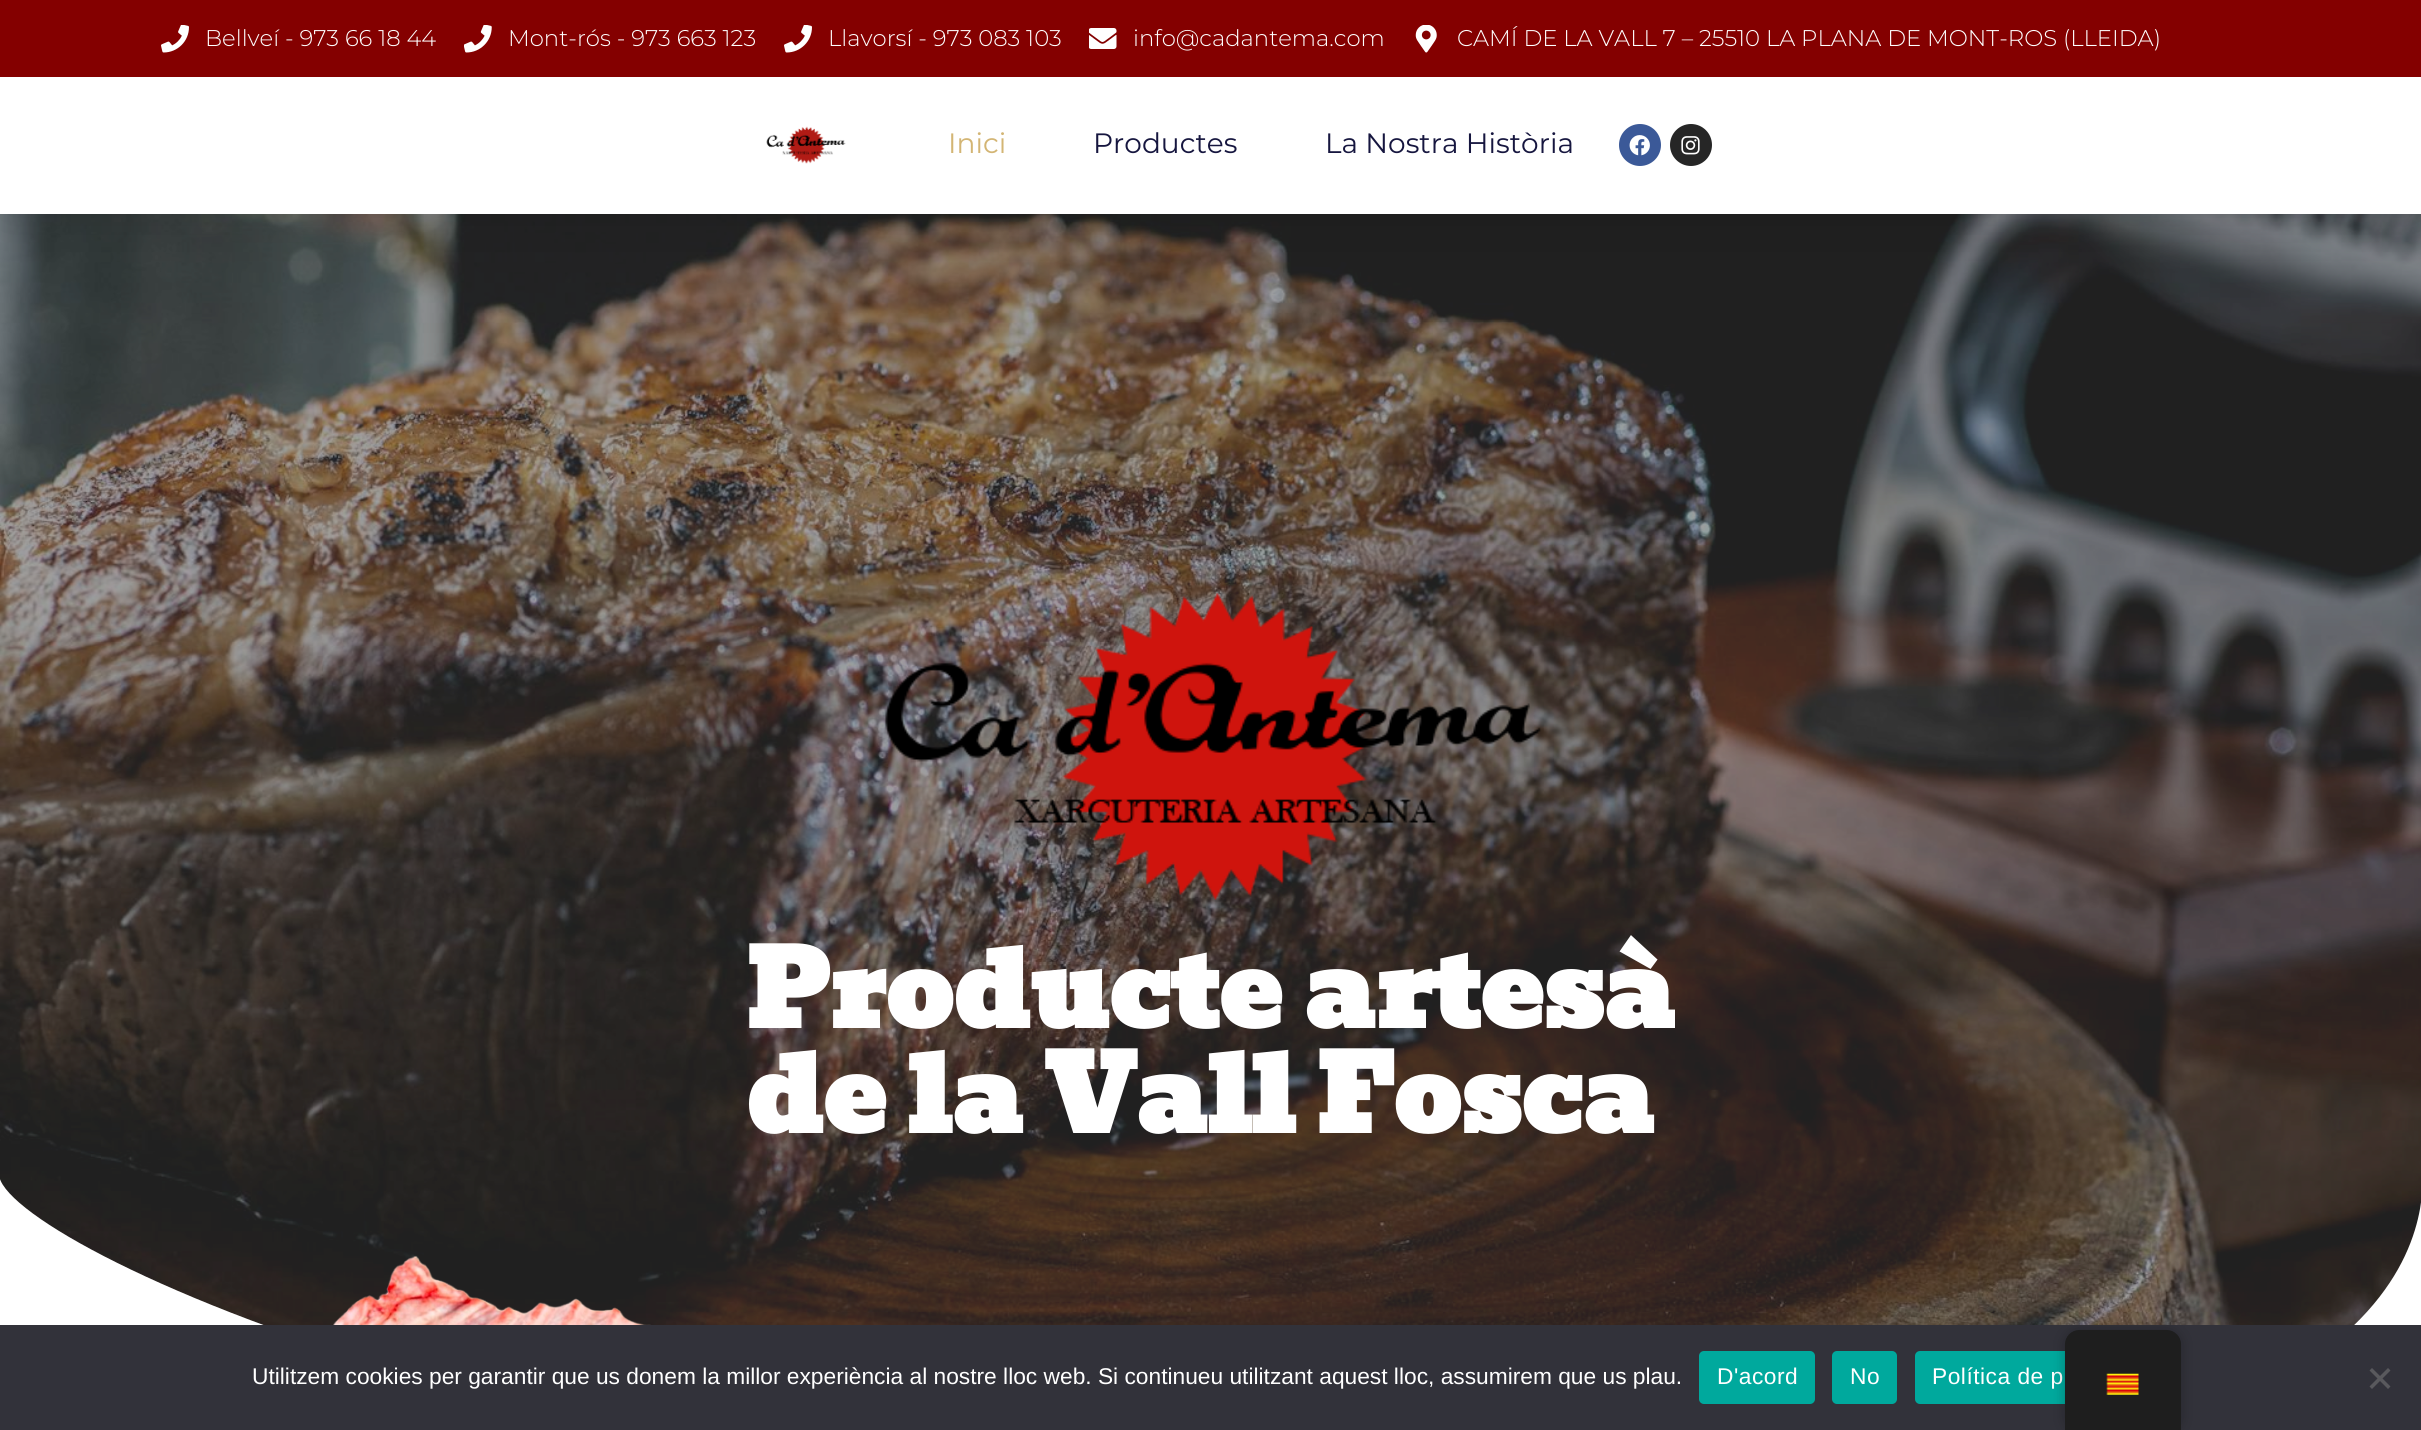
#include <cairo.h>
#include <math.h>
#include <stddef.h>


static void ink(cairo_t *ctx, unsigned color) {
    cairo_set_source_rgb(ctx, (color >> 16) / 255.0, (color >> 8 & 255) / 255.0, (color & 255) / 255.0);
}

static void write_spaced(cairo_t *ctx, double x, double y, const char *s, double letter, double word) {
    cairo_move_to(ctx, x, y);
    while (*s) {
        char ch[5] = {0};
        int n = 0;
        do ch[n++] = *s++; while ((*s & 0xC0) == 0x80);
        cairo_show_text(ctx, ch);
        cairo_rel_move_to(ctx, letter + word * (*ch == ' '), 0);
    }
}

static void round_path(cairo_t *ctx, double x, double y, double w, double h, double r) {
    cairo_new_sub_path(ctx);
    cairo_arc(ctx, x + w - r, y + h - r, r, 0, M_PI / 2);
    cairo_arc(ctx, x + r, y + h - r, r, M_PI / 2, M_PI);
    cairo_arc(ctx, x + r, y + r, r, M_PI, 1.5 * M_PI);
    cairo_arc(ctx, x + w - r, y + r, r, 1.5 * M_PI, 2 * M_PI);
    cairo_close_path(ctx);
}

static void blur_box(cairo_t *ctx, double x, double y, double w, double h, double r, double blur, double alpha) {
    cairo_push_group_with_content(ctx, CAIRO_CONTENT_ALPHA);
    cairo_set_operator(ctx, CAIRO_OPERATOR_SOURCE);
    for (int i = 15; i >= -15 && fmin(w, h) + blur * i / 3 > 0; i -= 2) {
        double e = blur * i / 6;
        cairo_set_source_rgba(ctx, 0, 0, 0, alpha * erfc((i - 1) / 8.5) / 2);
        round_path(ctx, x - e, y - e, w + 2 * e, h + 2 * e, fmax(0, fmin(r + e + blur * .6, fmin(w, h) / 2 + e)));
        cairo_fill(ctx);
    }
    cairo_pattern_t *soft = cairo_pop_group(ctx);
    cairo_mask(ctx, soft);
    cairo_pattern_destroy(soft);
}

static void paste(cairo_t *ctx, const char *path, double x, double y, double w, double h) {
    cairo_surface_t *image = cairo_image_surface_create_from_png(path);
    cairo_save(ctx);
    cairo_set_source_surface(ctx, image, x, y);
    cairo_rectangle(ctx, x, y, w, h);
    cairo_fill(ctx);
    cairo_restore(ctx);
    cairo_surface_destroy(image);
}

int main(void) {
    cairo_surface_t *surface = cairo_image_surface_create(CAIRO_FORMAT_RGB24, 2421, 1430);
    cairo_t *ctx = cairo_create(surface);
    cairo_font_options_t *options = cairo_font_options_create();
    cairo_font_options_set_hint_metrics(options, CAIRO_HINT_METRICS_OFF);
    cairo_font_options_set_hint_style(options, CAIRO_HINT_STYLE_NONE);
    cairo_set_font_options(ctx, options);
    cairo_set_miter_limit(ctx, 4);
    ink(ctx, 0xFFFFFF);
    cairo_paint(ctx);
    paste(ctx, "media/8.png", 0, 214, 2421, 1111);
    ink(ctx, 0x000000);
    blur_box(ctx, 0, 9, 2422, 213, 0, 26, 0.1);
    ink(ctx, 0x840000);
    cairo_rectangle(ctx, 0, 0, 2421, 77);
    cairo_fill(ctx);
    paste(ctx, "media/1.png", 161, 25, 28, 28);
    cairo_select_font_face(ctx, "Montserrat Light", CAIRO_FONT_SLANT_NORMAL, CAIRO_FONT_WEIGHT_NORMAL);
    cairo_set_font_size(ctx, 22.75);
    ink(ctx, 0xFFFFFF);
    cairo_move_to(ctx, 205, 46);
    cairo_show_text(ctx, "Bellveí - 973 66 18 44");
    paste(ctx, "media/2.png", 464, 25, 28, 28);
    cairo_move_to(ctx, 508, 46);
    cairo_show_text(ctx, "Mont-rós - 973 663 123");
    paste(ctx, "media/1.png", 784, 25, 28, 28);
    cairo_move_to(ctx, 828, 46);
    cairo_show_text(ctx, "Llavorsí - 973 083 103");
    paste(ctx, "media/3.png", 1089, 28, 28, 21);
    cairo_move_to(ctx, 1133, 46);
    cairo_show_text(ctx, "info@cadantema.com");
    paste(ctx, "media/4.png", 1415, 25, 22, 28);
    cairo_move_to(ctx, 1457, 46);
    cairo_show_text(ctx, "CAMÍ DE LA VALL 7 – 25510 LA PLANA DE MONT-ROS (LLEIDA)");
    cairo_rectangle(ctx, 0, 77, 2421, 137);
    cairo_fill(ctx);
    paste(ctx, "media/5.png", 766, 126, 80, 38);
    cairo_select_font_face(ctx, "Montserrat", CAIRO_FONT_SLANT_NORMAL, CAIRO_FONT_WEIGHT_NORMAL);
    cairo_set_font_size(ctx, 28);
    ink(ctx, 0xD3B574);
    cairo_move_to(ctx, 948, 153);
    cairo_show_text(ctx, "Inici");
    ink(ctx, 0x16163F);
    cairo_move_to(ctx, 1093, 153);
    cairo_show_text(ctx, "Productes");
    cairo_move_to(ctx, 1325, 153);
    cairo_show_text(ctx, "La Nostra Història");
    ink(ctx, 0x3B5998);
    cairo_new_path(ctx);
    cairo_arc(ctx, 1640, 145, 21, 0, 2 * M_PI);
    cairo_fill(ctx);
    paste(ctx, "media/6.png", 1629, 135, 21, 21);
    ink(ctx, 0x262626);
    cairo_arc(ctx, 1691, 145, 21, 0, 2 * M_PI);
    cairo_fill(ctx);
    paste(ctx, "media/7.png", 1681, 136, 19, 19);
    paste(ctx, "media/9.png", 885, 593, 656, 307);
    cairo_select_font_face(ctx, "Bevan", CAIRO_FONT_SLANT_NORMAL, CAIRO_FONT_WEIGHT_BOLD);
    cairo_set_font_size(ctx, 105);
    ink(ctx, 0xFFFFFF);
    cairo_move_to(ctx, 746, 1028);
    cairo_show_text(ctx, "Producte artesà");
    cairo_move_to(ctx, 746, 1133);
    cairo_show_text(ctx, "de la Vall Fosca");
    cairo_new_path(ctx);
    cairo_move_to(ctx, 1490, 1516);
    cairo_curve_to(ctx, 581, 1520, -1, 1241, -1, 1174);
    cairo_line_to(ctx, -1, 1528);
    cairo_line_to(ctx, 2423, 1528);
    cairo_line_to(ctx, 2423, 1174);
    cairo_curve_to(ctx, 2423, 1242, 2398, 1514, 1490, 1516);
    cairo_close_path(ctx);
    cairo_fill(ctx);
    paste(ctx, "media/10.png", 333, 1256, 318, 69);
    ink(ctx, 0x32323A);
    cairo_rectangle(ctx, 0, 1325, 2421, 105);
    cairo_fill(ctx);
    cairo_select_font_face(ctx, "Liberation Sans", CAIRO_FONT_SLANT_NORMAL, CAIRO_FONT_WEIGHT_NORMAL);
    cairo_set_font_size(ctx, 22.75);
    ink(ctx, 0xFFFFFF);
    cairo_move_to(ctx, 252, 1384);
    cairo_show_text(ctx, "Utilitzem cookies per garantir que us donem la millor experiència al nostre lloc web. Si continueu utilitzant aquest lloc, assumirem que us plau.");
    ink(ctx, 0x00A99D);
    round_path(ctx, 1699, 1351, 116, 53, 5);
    cairo_fill(ctx);
    ink(ctx, 0xFFFFFF);
    write_spaced(ctx, 1717, 1384, "D'acord", 0.5, 0);
    ink(ctx, 0x00A99D);
    round_path(ctx, 1832, 1351, 65, 53, 5);
    cairo_fill(ctx);
    ink(ctx, 0xFFFFFF);
    write_spaced(ctx, 1850, 1384, "No", 0.5, 0);
    ink(ctx, 0x00A99D);
    round_path(ctx, 1915, 1351, 255, 53, 5);
    cairo_fill(ctx);
    ink(ctx, 0xFFFFFF);
    write_spaced(ctx, 1932, 1384, "Política de p", 0.5, 0);
    ink(ctx, 0x59595D);
    cairo_new_path(ctx);
    cairo_move_to(ctx, 2388, 1368);
    cairo_line_to(ctx, 2390.5, 1370.5);
    cairo_line_to(ctx, 2372, 1389);
    cairo_line_to(ctx, 2369.5, 1386.5);
    cairo_close_path(ctx);
    cairo_fill(ctx);
    cairo_new_path(ctx);
    cairo_move_to(ctx, 2369.5, 1370.5);
    cairo_line_to(ctx, 2372, 1368);
    cairo_line_to(ctx, 2390.5, 1386.5);
    cairo_line_to(ctx, 2388, 1389);
    cairo_close_path(ctx);
    cairo_fill(ctx);
    ink(ctx, 0x000000);
    blur_box(ctx, 2065, 1330, 116, 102, 14, 7, 0.25);
    ink(ctx, 0x1E1E1E);
    cairo_new_path(ctx);
    cairo_move_to(ctx, 2079, 1330);
    cairo_line_to(ctx, 2167, 1330);
    cairo_curve_to(ctx, 2174.5, 1330, 2181, 1336.5, 2181, 1344);
    cairo_line_to(ctx, 2181, 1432);
    cairo_line_to(ctx, 2065, 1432);
    cairo_line_to(ctx, 2065, 1344);
    cairo_curve_to(ctx, 2065, 1336.5, 2071.5, 1330, 2079, 1330);
    cairo_close_path(ctx);
    cairo_fill(ctx);
    paste(ctx, "media/11.png", 2106, 1373, 33, 22);
    cairo_surface_write_to_png(surface, "image.png");
    cairo_font_options_destroy(options);
    cairo_destroy(ctx);
    cairo_surface_destroy(surface);
    return 0;
}
